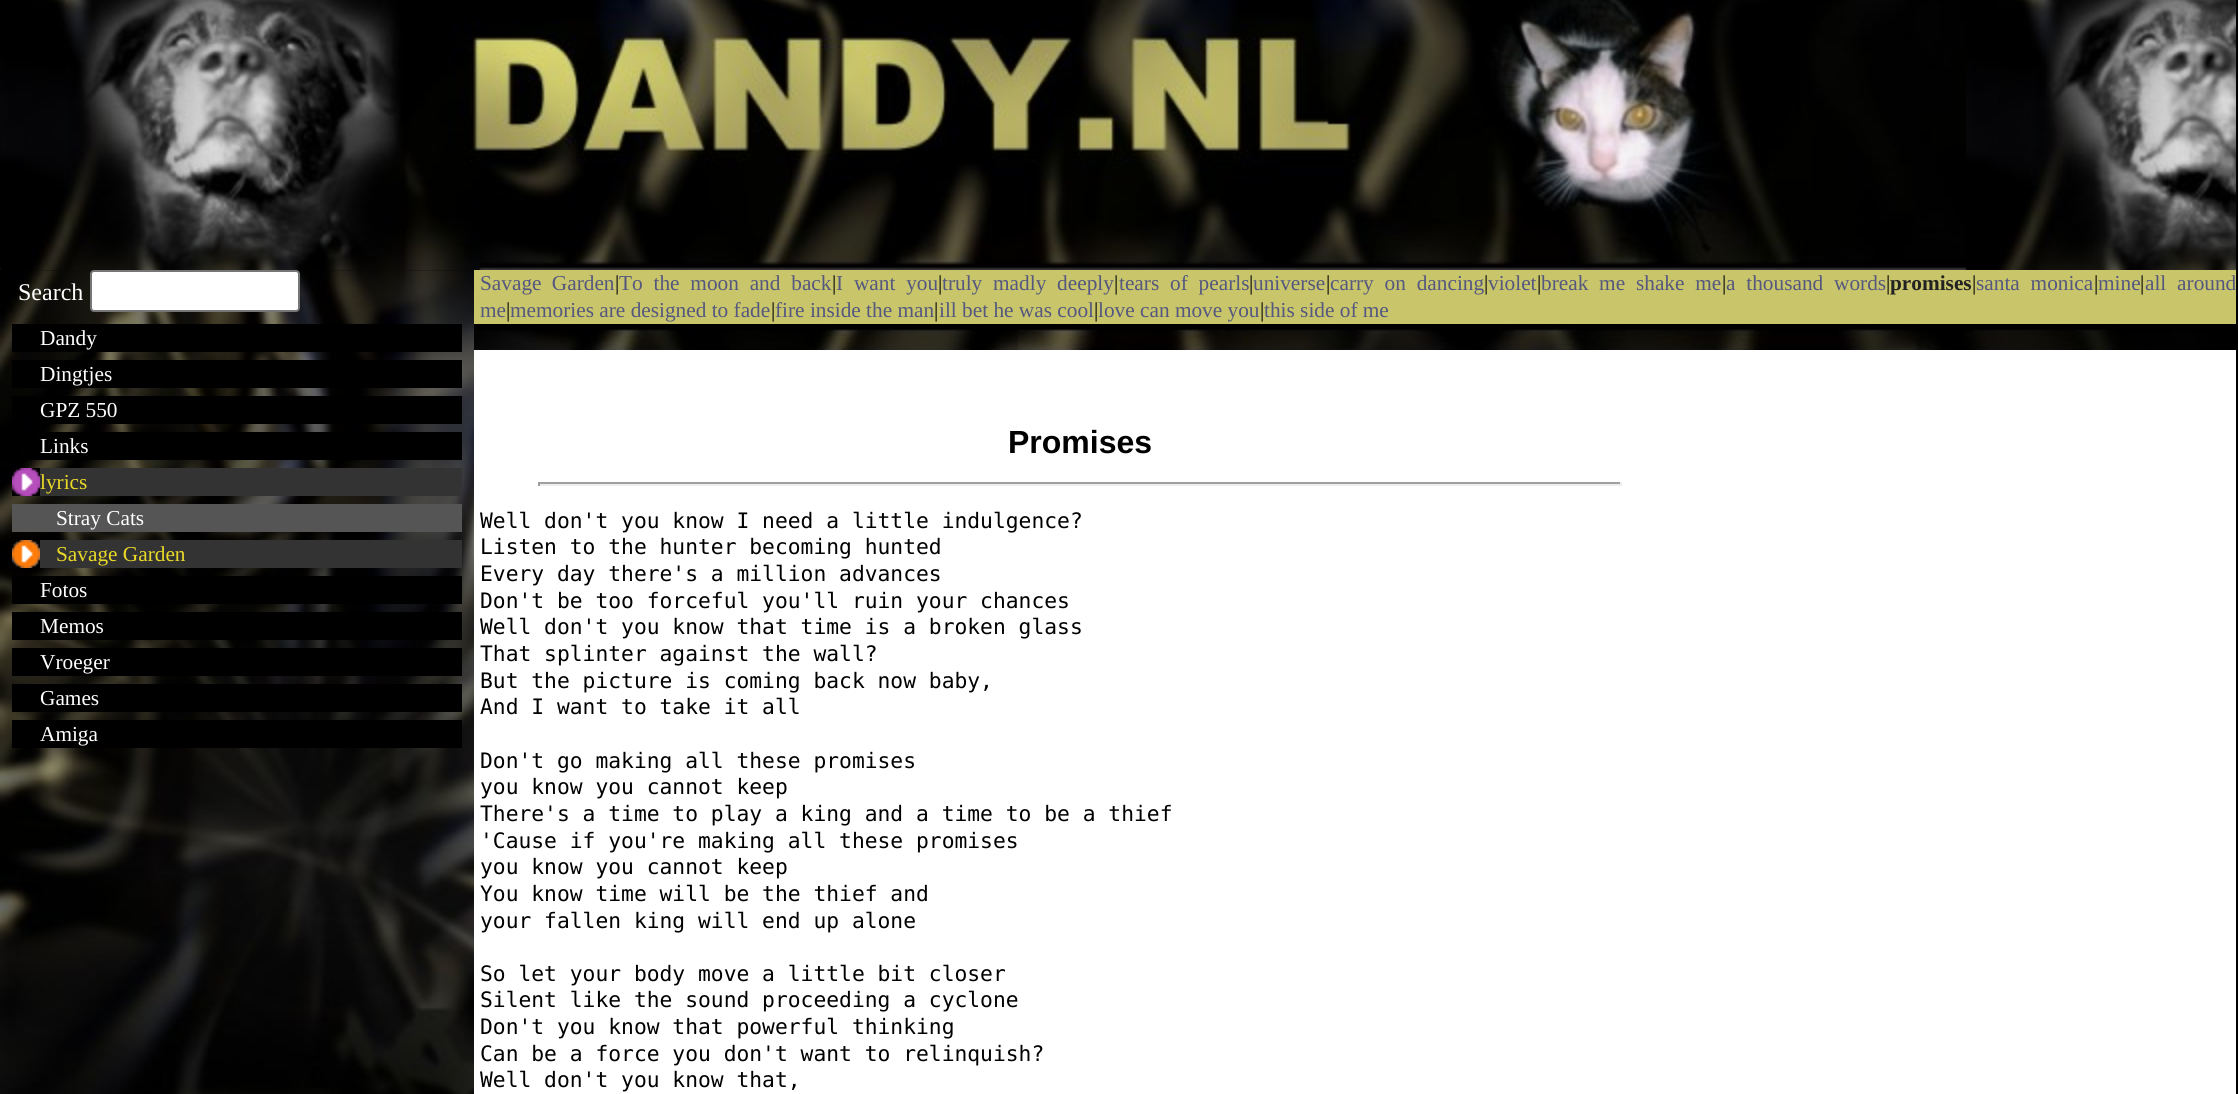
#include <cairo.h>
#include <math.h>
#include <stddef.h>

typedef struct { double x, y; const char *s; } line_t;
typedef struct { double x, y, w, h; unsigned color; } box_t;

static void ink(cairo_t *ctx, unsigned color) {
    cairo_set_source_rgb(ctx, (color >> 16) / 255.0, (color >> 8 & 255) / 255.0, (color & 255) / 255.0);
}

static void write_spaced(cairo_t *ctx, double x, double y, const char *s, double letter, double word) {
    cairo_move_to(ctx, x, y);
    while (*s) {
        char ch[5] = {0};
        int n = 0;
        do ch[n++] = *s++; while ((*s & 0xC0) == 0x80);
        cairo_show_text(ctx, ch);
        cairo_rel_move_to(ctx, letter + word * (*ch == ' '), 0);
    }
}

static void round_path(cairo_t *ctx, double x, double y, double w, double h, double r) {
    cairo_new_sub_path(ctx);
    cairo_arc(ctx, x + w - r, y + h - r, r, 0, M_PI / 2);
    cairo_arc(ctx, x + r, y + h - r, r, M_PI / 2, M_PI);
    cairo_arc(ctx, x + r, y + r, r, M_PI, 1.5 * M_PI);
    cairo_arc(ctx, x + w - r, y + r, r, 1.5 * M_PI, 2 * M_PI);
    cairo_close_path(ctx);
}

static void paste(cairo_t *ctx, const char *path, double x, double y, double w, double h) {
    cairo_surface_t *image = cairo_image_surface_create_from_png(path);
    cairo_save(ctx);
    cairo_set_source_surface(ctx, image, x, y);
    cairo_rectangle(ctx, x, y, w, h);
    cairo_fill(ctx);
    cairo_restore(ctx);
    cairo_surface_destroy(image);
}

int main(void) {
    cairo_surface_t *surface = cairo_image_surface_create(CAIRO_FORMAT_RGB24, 2238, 1094);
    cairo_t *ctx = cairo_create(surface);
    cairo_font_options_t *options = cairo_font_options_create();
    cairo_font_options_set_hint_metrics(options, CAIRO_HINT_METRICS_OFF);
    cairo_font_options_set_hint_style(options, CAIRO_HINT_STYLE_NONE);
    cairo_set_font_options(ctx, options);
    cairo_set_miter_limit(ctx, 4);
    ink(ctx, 0xFFFFFF);
    cairo_paint(ctx);
    paste(ctx, "media/1.png", 0, 0, 2236, 270);
    ink(ctx, 0x000000);
    cairo_rectangle(ctx, 2236, 0, 2, 1094);
    cairo_fill(ctx);
    ink(ctx, 0xC9C56B);
    cairo_rectangle(ctx, 474, 270, 1762, 54);
    cairo_fill(ctx);
    paste(ctx, "media/2.png", 0, 270, 474, 824);
    cairo_select_font_face(ctx, "Liberation Serif", CAIRO_FONT_SLANT_NORMAL, CAIRO_FONT_WEIGHT_NORMAL);
    cairo_set_font_size(ctx, 24);
    ink(ctx, 0xFFFFFF);
    cairo_move_to(ctx, 18, 300);
    cairo_show_text(ctx, "Search");
    round_path(ctx, 91, 271, 208, 40, 3);
    cairo_fill_preserve(ctx);
    ink(ctx, 0x767676);
    cairo_stroke(ctx);
    ink(ctx, 0x000000);
    cairo_rectangle(ctx, 12, 324, 450, 28);
    cairo_fill(ctx);
    cairo_set_font_size(ctx, 21.3);
    ink(ctx, 0xFFFFFF);
    cairo_move_to(ctx, 40, 345);
    cairo_show_text(ctx, "Dandy");
    ink(ctx, 0x000000);
    cairo_rectangle(ctx, 12, 360, 450, 28);
    cairo_fill(ctx);
    ink(ctx, 0xFFFFFF);
    cairo_move_to(ctx, 40, 381);
    cairo_show_text(ctx, "Dingtjes");
    ink(ctx, 0x000000);
    cairo_rectangle(ctx, 12, 396, 26, 18);
    cairo_fill(ctx);
    cairo_rectangle(ctx, 49, 396, 413, 28);
    cairo_fill(ctx);
    ink(ctx, 0xFFFFFF);
    cairo_move_to(ctx, 40, 417);
    cairo_show_text(ctx, "GPZ 550");
    ink(ctx, 0x000000);
    cairo_rectangle(ctx, 27, 441, 13, 19);
    cairo_fill(ctx);
    cairo_rectangle(ctx, 40, 432, 422, 28);
    cairo_fill(ctx);
    ink(ctx, 0xFFFFFF);
    cairo_move_to(ctx, 40, 453);
    cairo_show_text(ctx, "Links");
    paste(ctx, "media/3.png", 12, 468, 28, 28);
    ink(ctx, 0x333333);
    cairo_rectangle(ctx, 40, 468, 422, 28);
    cairo_fill(ctx);
    ink(ctx, 0xEADA28);
    cairo_move_to(ctx, 40, 489);
    cairo_show_text(ctx, "lyrics");
    ink(ctx, 0x555555);
    cairo_rectangle(ctx, 12, 504, 450, 28);
    cairo_fill(ctx);
    ink(ctx, 0xFFFFFF);
    cairo_move_to(ctx, 56, 525);
    cairo_show_text(ctx, "Stray Cats");
    paste(ctx, "media/4.png", 12, 540, 28, 28);
    ink(ctx, 0x333333);
    cairo_rectangle(ctx, 40, 540, 422, 28);
    cairo_fill(ctx);
    ink(ctx, 0xEADA28);
    cairo_move_to(ctx, 56, 561);
    cairo_show_text(ctx, "Savage Garden");
    ink(ctx, 0x000000);
    cairo_rectangle(ctx, 12, 576, 450, 28);
    cairo_fill(ctx);
    ink(ctx, 0xFFFFFF);
    cairo_move_to(ctx, 40, 597);
    cairo_show_text(ctx, "Fotos");
    ink(ctx, 0x000000);
    cairo_rectangle(ctx, 12, 612, 450, 28);
    cairo_fill(ctx);
    ink(ctx, 0xFFFFFF);
    cairo_move_to(ctx, 40, 633);
    cairo_show_text(ctx, "Memos");
    ink(ctx, 0x000000);
    cairo_rectangle(ctx, 12, 648, 450, 28);
    cairo_fill(ctx);
    ink(ctx, 0xFFFFFF);
    cairo_move_to(ctx, 40, 669);
    cairo_show_text(ctx, "Vroeger");
    ink(ctx, 0x000000);
    cairo_rectangle(ctx, 12, 684, 450, 28);
    cairo_fill(ctx);
    ink(ctx, 0xFFFFFF);
    cairo_move_to(ctx, 40, 705);
    cairo_show_text(ctx, "Games");
    ink(ctx, 0x000000);
    cairo_rectangle(ctx, 12, 720, 450, 28);
    cairo_fill(ctx);
    ink(ctx, 0xFFFFFF);
    cairo_move_to(ctx, 40, 741);
    cairo_show_text(ctx, "Amiga");
    ink(ctx, 0x54577E);
    write_spaced(ctx, 480, 290, "Savage Garden", 0, 5);
    ink(ctx, 0x000000);
    cairo_move_to(ctx, 615, 290);
    cairo_show_text(ctx, "|");
    ink(ctx, 0x54577E);
    write_spaced(ctx, 619, 290, "To the moon and back", 0, 5.5);
    ink(ctx, 0x000000);
    cairo_move_to(ctx, 832, 290);
    cairo_show_text(ctx, "|");
    ink(ctx, 0x54577E);
    write_spaced(ctx, 836, 290, "I want you", 0, 5.5);
    ink(ctx, 0x000000);
    cairo_move_to(ctx, 938, 290);
    cairo_show_text(ctx, "|");
    ink(ctx, 0x54577E);
    write_spaced(ctx, 942, 290, "truly madly deeply", 0, 5.5);
    ink(ctx, 0x000000);
    cairo_move_to(ctx, 1114, 290);
    cairo_show_text(ctx, "|");
    ink(ctx, 0x54577E);
    write_spaced(ctx, 1119, 290, "tears of pearls", 0, 5.5);
    ink(ctx, 0x000000);
    cairo_move_to(ctx, 1249, 290);
    cairo_show_text(ctx, "|");
    ink(ctx, 0x54577E);
    cairo_move_to(ctx, 1253, 290);
    cairo_show_text(ctx, "universe");
    ink(ctx, 0x000000);
    cairo_move_to(ctx, 1326, 290);
    cairo_show_text(ctx, "|");
    ink(ctx, 0x54577E);
    write_spaced(ctx, 1330, 290, "carry on dancing", 0, 5.5);
    ink(ctx, 0x000000);
    cairo_move_to(ctx, 1484, 290);
    cairo_show_text(ctx, "|");
    ink(ctx, 0x54577E);
    cairo_move_to(ctx, 1488, 290);
    cairo_show_text(ctx, "violet");
    ink(ctx, 0x000000);
    cairo_move_to(ctx, 1537, 290);
    cairo_show_text(ctx, "|");
    ink(ctx, 0x54577E);
    write_spaced(ctx, 1541, 290, "break me shake me", 0, 5.5);
    ink(ctx, 0x000000);
    cairo_move_to(ctx, 1722, 290);
    cairo_show_text(ctx, "|");
    ink(ctx, 0x54577E);
    write_spaced(ctx, 1726, 290, "a thousand words", 0, 5.5);
    ink(ctx, 0x000000);
    cairo_move_to(ctx, 1886, 290);
    cairo_show_text(ctx, "|");
    cairo_select_font_face(ctx, "Liberation Serif", CAIRO_FONT_SLANT_NORMAL, CAIRO_FONT_WEIGHT_BOLD);
    ink(ctx, 0x222222);
    cairo_move_to(ctx, 1890, 290);
    cairo_show_text(ctx, "promises");
    cairo_select_font_face(ctx, "Liberation Serif", CAIRO_FONT_SLANT_NORMAL, CAIRO_FONT_WEIGHT_NORMAL);
    ink(ctx, 0x000000);
    cairo_move_to(ctx, 1972, 290);
    cairo_show_text(ctx, "|");
    ink(ctx, 0x54577E);
    write_spaced(ctx, 1976, 290, "santa monica", 0, 5.5);
    ink(ctx, 0x000000);
    cairo_move_to(ctx, 2094, 290);
    cairo_show_text(ctx, "|");
    ink(ctx, 0x54577E);
    cairo_move_to(ctx, 2098, 290);
    cairo_show_text(ctx, "mine");
    ink(ctx, 0x000000);
    cairo_move_to(ctx, 2140, 290);
    cairo_show_text(ctx, "|");
    ink(ctx, 0x54577E);
    write_spaced(ctx, 2145, 290, "all around", 0, 5.5);
    cairo_move_to(ctx, 480, 317);
    cairo_show_text(ctx, "me");
    ink(ctx, 0x000000);
    cairo_move_to(ctx, 506, 317);
    cairo_show_text(ctx, "|");
    ink(ctx, 0x54577E);
    cairo_move_to(ctx, 510, 317);
    cairo_show_text(ctx, "memories are designed to fade");
    ink(ctx, 0x000000);
    cairo_move_to(ctx, 771, 317);
    cairo_show_text(ctx, "|");
    ink(ctx, 0x54577E);
    cairo_move_to(ctx, 775, 317);
    cairo_show_text(ctx, "fire inside the man");
    ink(ctx, 0x000000);
    cairo_move_to(ctx, 934, 317);
    cairo_show_text(ctx, "|");
    ink(ctx, 0x54577E);
    cairo_move_to(ctx, 939, 317);
    cairo_show_text(ctx, "ill bet he was cool");
    ink(ctx, 0x000000);
    cairo_move_to(ctx, 1094, 317);
    cairo_show_text(ctx, "|");
    ink(ctx, 0x54577E);
    cairo_move_to(ctx, 1098, 317);
    cairo_show_text(ctx, "love can move you");
    ink(ctx, 0x000000);
    cairo_move_to(ctx, 1260, 317);
    cairo_show_text(ctx, "|");
    ink(ctx, 0x54577E);
    cairo_move_to(ctx, 1264, 317);
    cairo_show_text(ctx, "this side of me");
    paste(ctx, "media/5.png", 474, 324, 1762, 26);
    cairo_select_font_face(ctx, "Liberation Sans", CAIRO_FONT_SLANT_NORMAL, CAIRO_FONT_WEIGHT_BOLD);
    cairo_set_font_size(ctx, 32);
    ink(ctx, 0x000000);
    cairo_move_to(ctx, 1008, 453);
    cairo_show_text(ctx, "Promises");
    {
        static const box_t items[] = {
            {538, 482, 1084, 2, 0x9F9F9F},
            {1620, 482, 2, 4, 0xEEEEEE},
            {538, 484, 1084, 2, 0xEEEEEE},
            {538, 482, 2, 4, 0x9F9F9F},
        };
        for (size_t i = 0; i < sizeof items / sizeof *items; i++) {
            ink(ctx, items[i].color);
            cairo_rectangle(ctx, items[i].x, items[i].y, items[i].w, items[i].h);
            cairo_fill(ctx);
        }
    }
    cairo_select_font_face(ctx, "DejaVu Sans Mono", CAIRO_FONT_SLANT_NORMAL, CAIRO_FONT_WEIGHT_NORMAL);
    cairo_set_font_size(ctx, 21.3);
    ink(ctx, 0x000000);
    {
        static const line_t items[] = {
            {480, 528, "Well don't you know I need a little indulgence?"},
            {480, 554, "Listen to the hunter becoming hunted"},
            {480, 581, "Every day there's a million advances"},
            {480, 608, "Don't be too forceful you'll ruin your chances"},
            {480, 634, "Well don't you know that time is a broken glass"},
            {480, 661, "That splinter against the wall?"},
            {480, 688, "But the picture is coming back now baby,"},
            {480, 714, "And I want to take it all"},
            {480, 768, "Don't go making all these promises"},
            {480, 794, "you know you cannot keep"},
            {480, 821, "There's a time to play a king and a time to be a thief"},
            {480, 848, "'Cause if you're making all these promises"},
            {480, 874, "you know you cannot keep"},
            {480, 901, "You know time will be the thief and"},
            {480, 928, "your fallen king will end up alone"},
            {480, 981, "So let your body move a little bit closer"},
            {480, 1007, "Silent like the sound proceeding a cyclone"},
            {480, 1034, "Don't you know that powerful thinking"},
            {480, 1061, "Can be a force you don't want to relinquish?"},
            {480, 1087, "Well don't you know that,"},
        };
        for (size_t i = 0; i < sizeof items / sizeof *items; i++) {
            cairo_move_to(ctx, items[i].x, items[i].y);
            cairo_show_text(ctx, items[i].s);
        }
    }
    cairo_surface_write_to_png(surface, "image.png");
    cairo_font_options_destroy(options);
    cairo_destroy(ctx);
    cairo_surface_destroy(surface);
    return 0;
}
